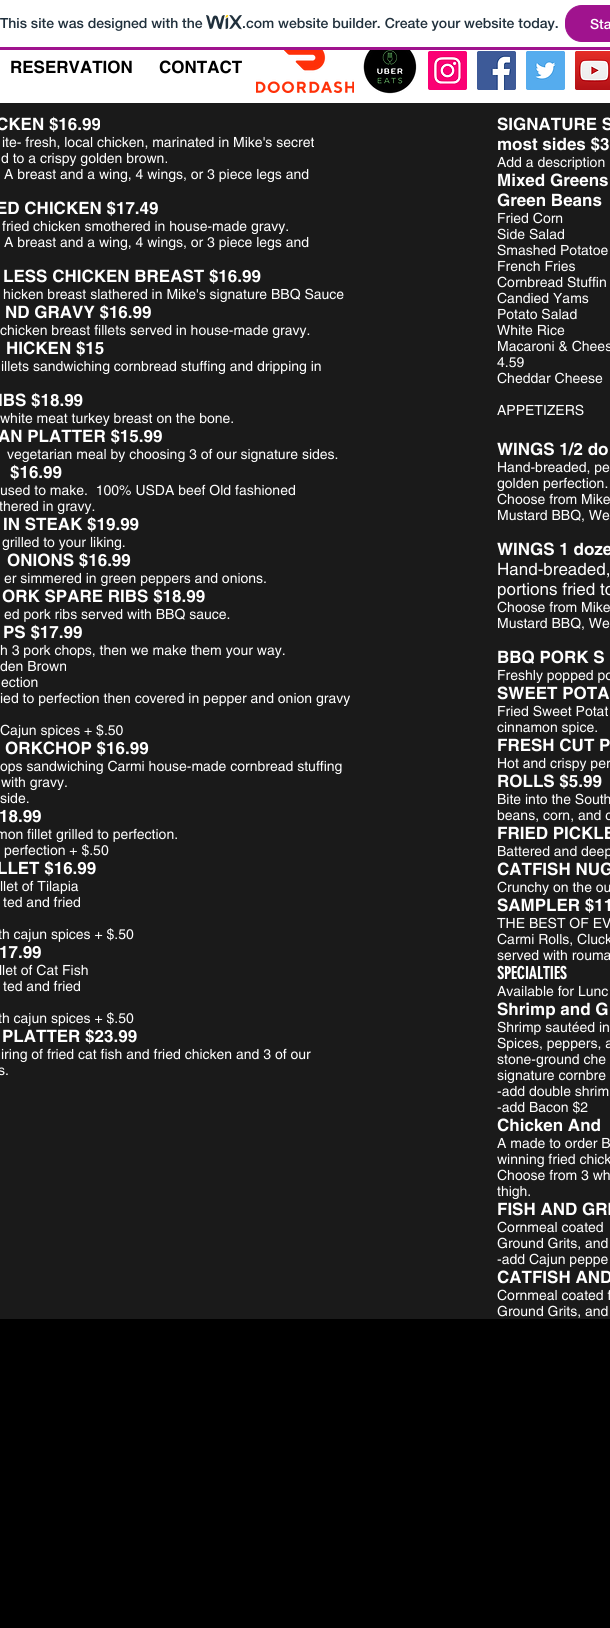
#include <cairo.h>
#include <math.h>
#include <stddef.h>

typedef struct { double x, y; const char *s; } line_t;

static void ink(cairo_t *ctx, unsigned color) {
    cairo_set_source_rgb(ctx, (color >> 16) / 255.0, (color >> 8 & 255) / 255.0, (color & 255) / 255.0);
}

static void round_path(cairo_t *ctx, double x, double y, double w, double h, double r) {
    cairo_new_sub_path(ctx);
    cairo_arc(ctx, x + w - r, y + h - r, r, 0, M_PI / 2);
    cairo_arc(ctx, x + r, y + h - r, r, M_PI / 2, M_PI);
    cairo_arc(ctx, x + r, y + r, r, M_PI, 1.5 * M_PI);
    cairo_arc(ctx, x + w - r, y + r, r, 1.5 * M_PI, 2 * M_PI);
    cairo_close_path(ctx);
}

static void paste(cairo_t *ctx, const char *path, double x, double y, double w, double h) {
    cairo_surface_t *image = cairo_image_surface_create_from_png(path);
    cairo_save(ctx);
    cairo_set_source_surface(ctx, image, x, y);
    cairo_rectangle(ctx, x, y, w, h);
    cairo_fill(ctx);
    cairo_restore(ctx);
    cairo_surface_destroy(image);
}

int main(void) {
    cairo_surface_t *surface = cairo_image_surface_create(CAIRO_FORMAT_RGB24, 610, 1628);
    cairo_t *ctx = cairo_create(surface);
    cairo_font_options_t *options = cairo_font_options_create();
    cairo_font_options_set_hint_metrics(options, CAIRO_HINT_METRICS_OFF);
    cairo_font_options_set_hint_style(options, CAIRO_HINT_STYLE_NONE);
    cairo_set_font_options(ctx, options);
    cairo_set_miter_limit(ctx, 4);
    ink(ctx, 0x1A1A1A);
    cairo_paint(ctx);
    ink(ctx, 0xFFFFFF);
    cairo_rectangle(ctx, 0, 0, 610, 47);
    cairo_fill(ctx);
    ink(ctx, 0xA0138E);
    cairo_rectangle(ctx, 0, 47, 610, 3);
    cairo_fill(ctx);
    cairo_select_font_face(ctx, "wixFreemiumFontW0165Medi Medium", CAIRO_FONT_SLANT_NORMAL, CAIRO_FONT_WEIGHT_NORMAL);
    cairo_set_font_size(ctx, 14);
    ink(ctx, 0x20303C);
    cairo_move_to(ctx, 0, 28);
    cairo_show_text(ctx, "This site was designed with the");
    paste(ctx, "media/1.png", 206, 15, 36, 15);
    cairo_move_to(ctx, 242, 28);
    cairo_show_text(ctx, ".com website builder. Create your website today.");
    ink(ctx, 0xA0138E);
    round_path(ctx, 565.5, 5.5, 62, 36, 16.5);
    cairo_fill_preserve(ctx);
    cairo_set_line_width(ctx, 1);
    cairo_stroke(ctx);
    ink(ctx, 0xFFFFFF);
    cairo_move_to(ctx, 590, 29);
    cairo_show_text(ctx, "Sta");
    cairo_rectangle(ctx, 0, 50, 610, 53);
    cairo_fill(ctx);
    cairo_select_font_face(ctx, "helvetica", CAIRO_FONT_SLANT_NORMAL, CAIRO_FONT_WEIGHT_BOLD);
    cairo_set_font_size(ctx, 17);
    ink(ctx, 0x000000);
    cairo_move_to(ctx, 10, 73);
    cairo_show_text(ctx, "RESERVATION");
    cairo_move_to(ctx, 159, 73);
    cairo_show_text(ctx, "CONTACT");
    paste(ctx, "media/2.png", 256, 50, 98, 43);
    paste(ctx, "media/3.png", 363, 50, 54, 44);
    paste(ctx, "media/4.png", 428, 51, 39, 39);
    paste(ctx, "media/5.png", 477, 51, 39, 39);
    paste(ctx, "media/6.png", 526, 51, 39, 39);
    paste(ctx, "media/7.png", 575, 51, 35, 39);
    ink(ctx, 0xFFFFFF);
    cairo_move_to(ctx, -4, 130);
    cairo_show_text(ctx, "CKEN $16.99");
    cairo_select_font_face(ctx, "helvetica", CAIRO_FONT_SLANT_NORMAL, CAIRO_FONT_WEIGHT_NORMAL);
    cairo_set_font_size(ctx, 14);
    {
        static const line_t items[] = {
            {2, 147, "ite- fresh, local chicken, marinated in Mike's secret"},
            {1, 163, "d to a crispy golden brown."},
            {4, 179, "A breast and a wing, 4 wings, or 3 piece legs and"},
        };
        for (size_t i = 0; i < sizeof items / sizeof *items; i++) {
            cairo_move_to(ctx, items[i].x, items[i].y);
            cairo_show_text(ctx, items[i].s);
        }
    }
    cairo_select_font_face(ctx, "helvetica", CAIRO_FONT_SLANT_NORMAL, CAIRO_FONT_WEIGHT_BOLD);
    cairo_set_font_size(ctx, 17);
    cairo_move_to(ctx, -4, 214);
    cairo_show_text(ctx, "ED CHICKEN $17.49");
    cairo_select_font_face(ctx, "helvetica", CAIRO_FONT_SLANT_NORMAL, CAIRO_FONT_WEIGHT_NORMAL);
    cairo_set_font_size(ctx, 14);
    cairo_move_to(ctx, 2, 231);
    cairo_show_text(ctx, "fried chicken smothered in house-made gravy.");
    cairo_move_to(ctx, 4, 247);
    cairo_show_text(ctx, "A breast and a wing, 4 wings, or 3 piece legs and");
    cairo_select_font_face(ctx, "helvetica", CAIRO_FONT_SLANT_NORMAL, CAIRO_FONT_WEIGHT_BOLD);
    cairo_set_font_size(ctx, 17);
    cairo_move_to(ctx, 3, 282);
    cairo_show_text(ctx, "LESS CHICKEN BREAST $16.99");
    cairo_select_font_face(ctx, "helvetica", CAIRO_FONT_SLANT_NORMAL, CAIRO_FONT_WEIGHT_NORMAL);
    cairo_set_font_size(ctx, 14);
    cairo_move_to(ctx, 3, 299);
    cairo_show_text(ctx, "hicken breast slathered in Mike's signature BBQ Sauce");
    cairo_select_font_face(ctx, "helvetica", CAIRO_FONT_SLANT_NORMAL, CAIRO_FONT_WEIGHT_BOLD);
    cairo_set_font_size(ctx, 17);
    cairo_move_to(ctx, 5, 318);
    cairo_show_text(ctx, "ND GRAVY $16.99");
    cairo_select_font_face(ctx, "helvetica", CAIRO_FONT_SLANT_NORMAL, CAIRO_FONT_WEIGHT_NORMAL);
    cairo_set_font_size(ctx, 14);
    cairo_move_to(ctx, 0, 335);
    cairo_show_text(ctx, "chicken breast fillets served in house-made gravy.");
    cairo_select_font_face(ctx, "helvetica", CAIRO_FONT_SLANT_NORMAL, CAIRO_FONT_WEIGHT_BOLD);
    cairo_set_font_size(ctx, 17);
    cairo_move_to(ctx, 6, 354);
    cairo_show_text(ctx, "HICKEN $15");
    cairo_select_font_face(ctx, "helvetica", CAIRO_FONT_SLANT_NORMAL, CAIRO_FONT_WEIGHT_NORMAL);
    cairo_set_font_size(ctx, 14);
    cairo_move_to(ctx, 1, 371);
    cairo_show_text(ctx, "illets sandwiching cornbread stuffing and dripping in");
    cairo_select_font_face(ctx, "helvetica", CAIRO_FONT_SLANT_NORMAL, CAIRO_FONT_WEIGHT_BOLD);
    cairo_set_font_size(ctx, 17);
    cairo_move_to(ctx, -2, 406);
    cairo_show_text(ctx, "IBS $18.99");
    cairo_select_font_face(ctx, "helvetica", CAIRO_FONT_SLANT_NORMAL, CAIRO_FONT_WEIGHT_NORMAL);
    cairo_set_font_size(ctx, 14);
    cairo_move_to(ctx, 0, 423);
    cairo_show_text(ctx, "white meat turkey breast on the bone.");
    cairo_select_font_face(ctx, "helvetica", CAIRO_FONT_SLANT_NORMAL, CAIRO_FONT_WEIGHT_BOLD);
    cairo_set_font_size(ctx, 17);
    cairo_move_to(ctx, -2, 442);
    cairo_show_text(ctx, "AN PLATTER $15.99");
    cairo_select_font_face(ctx, "helvetica", CAIRO_FONT_SLANT_NORMAL, CAIRO_FONT_WEIGHT_NORMAL);
    cairo_set_font_size(ctx, 14);
    cairo_move_to(ctx, 7, 459);
    cairo_show_text(ctx, "vegetarian meal by choosing 3 of our signature sides.");
    cairo_select_font_face(ctx, "helvetica", CAIRO_FONT_SLANT_NORMAL, CAIRO_FONT_WEIGHT_BOLD);
    cairo_set_font_size(ctx, 17);
    cairo_move_to(ctx, 10, 478);
    cairo_show_text(ctx, "$16.99");
    cairo_select_font_face(ctx, "helvetica", CAIRO_FONT_SLANT_NORMAL, CAIRO_FONT_WEIGHT_NORMAL);
    cairo_set_font_size(ctx, 14);
    cairo_move_to(ctx, 0, 495);
    cairo_show_text(ctx, "used to make.  100% USDA beef Old fashioned");
    cairo_move_to(ctx, -1, 511);
    cairo_show_text(ctx, "thered in gravy.");
    cairo_select_font_face(ctx, "helvetica", CAIRO_FONT_SLANT_NORMAL, CAIRO_FONT_WEIGHT_BOLD);
    cairo_set_font_size(ctx, 17);
    cairo_move_to(ctx, 3, 530);
    cairo_show_text(ctx, "IN STEAK $19.99");
    cairo_select_font_face(ctx, "helvetica", CAIRO_FONT_SLANT_NORMAL, CAIRO_FONT_WEIGHT_NORMAL);
    cairo_set_font_size(ctx, 14);
    cairo_move_to(ctx, 2, 547);
    cairo_show_text(ctx, "grilled to your liking.");
    cairo_select_font_face(ctx, "helvetica", CAIRO_FONT_SLANT_NORMAL, CAIRO_FONT_WEIGHT_BOLD);
    cairo_set_font_size(ctx, 17);
    cairo_move_to(ctx, 7, 566);
    cairo_show_text(ctx, "ONIONS $16.99");
    cairo_select_font_face(ctx, "helvetica", CAIRO_FONT_SLANT_NORMAL, CAIRO_FONT_WEIGHT_NORMAL);
    cairo_set_font_size(ctx, 14);
    cairo_move_to(ctx, 4, 583);
    cairo_show_text(ctx, "er simmered in green peppers and onions.");
    cairo_select_font_face(ctx, "helvetica", CAIRO_FONT_SLANT_NORMAL, CAIRO_FONT_WEIGHT_BOLD);
    cairo_set_font_size(ctx, 17);
    cairo_move_to(ctx, 2, 602);
    cairo_show_text(ctx, "ORK SPARE RIBS $18.99");
    cairo_select_font_face(ctx, "helvetica", CAIRO_FONT_SLANT_NORMAL, CAIRO_FONT_WEIGHT_NORMAL);
    cairo_set_font_size(ctx, 14);
    cairo_move_to(ctx, 4, 619);
    cairo_show_text(ctx, "ed pork ribs served with BBQ sauce.");
    cairo_select_font_face(ctx, "helvetica", CAIRO_FONT_SLANT_NORMAL, CAIRO_FONT_WEIGHT_BOLD);
    cairo_set_font_size(ctx, 17);
    cairo_move_to(ctx, 3, 638);
    cairo_show_text(ctx, "PS $17.99");
    cairo_select_font_face(ctx, "helvetica", CAIRO_FONT_SLANT_NORMAL, CAIRO_FONT_WEIGHT_NORMAL);
    cairo_set_font_size(ctx, 14);
    {
        static const line_t items[] = {
            {0, 655, "h 3 pork chops, then we make them your way."},
            {0, 671, "den Brown"},
            {1, 687, "ection"},
            {0, 703, "ied to perfection then covered in pepper and onion gravy"},
            {0, 735, "Cajun spices + $.50"},
        };
        for (size_t i = 0; i < sizeof items / sizeof *items; i++) {
            cairo_move_to(ctx, items[i].x, items[i].y);
            cairo_show_text(ctx, items[i].s);
        }
    }
    cairo_select_font_face(ctx, "helvetica", CAIRO_FONT_SLANT_NORMAL, CAIRO_FONT_WEIGHT_BOLD);
    cairo_set_font_size(ctx, 17);
    cairo_move_to(ctx, 5, 754);
    cairo_show_text(ctx, "ORKCHOP $16.99");
    cairo_select_font_face(ctx, "helvetica", CAIRO_FONT_SLANT_NORMAL, CAIRO_FONT_WEIGHT_NORMAL);
    cairo_set_font_size(ctx, 14);
    {
        static const line_t items[] = {
            {0, 771, "ops sandwiching Carmi house-made cornbread stuffing"},
            {1, 787, "with gravy."},
            {0, 803, "side."},
        };
        for (size_t i = 0; i < sizeof items / sizeof *items; i++) {
            cairo_move_to(ctx, items[i].x, items[i].y);
            cairo_show_text(ctx, items[i].s);
        }
    }
    cairo_select_font_face(ctx, "helvetica", CAIRO_FONT_SLANT_NORMAL, CAIRO_FONT_WEIGHT_BOLD);
    cairo_set_font_size(ctx, 17);
    cairo_move_to(ctx, -1, 822);
    cairo_show_text(ctx, "18.99");
    cairo_select_font_face(ctx, "helvetica", CAIRO_FONT_SLANT_NORMAL, CAIRO_FONT_WEIGHT_NORMAL);
    cairo_set_font_size(ctx, 14);
    cairo_move_to(ctx, -4, 839);
    cairo_show_text(ctx, "mon fillet grilled to perfection.");
    cairo_move_to(ctx, 4, 855);
    cairo_show_text(ctx, "perfection + $.50");
    cairo_select_font_face(ctx, "helvetica", CAIRO_FONT_SLANT_NORMAL, CAIRO_FONT_WEIGHT_BOLD);
    cairo_set_font_size(ctx, 17);
    cairo_move_to(ctx, -3, 874);
    cairo_show_text(ctx, "LLET $16.99");
    cairo_select_font_face(ctx, "helvetica", CAIRO_FONT_SLANT_NORMAL, CAIRO_FONT_WEIGHT_NORMAL);
    cairo_set_font_size(ctx, 14);
    {
        static const line_t items[] = {
            {0, 891, "llet of Tilapia"},
            {3, 907, "ted and fried"},
            {-2, 939, "th cajun spices + $.50"},
        };
        for (size_t i = 0; i < sizeof items / sizeof *items; i++) {
            cairo_move_to(ctx, items[i].x, items[i].y);
            cairo_show_text(ctx, items[i].s);
        }
    }
    cairo_select_font_face(ctx, "helvetica", CAIRO_FONT_SLANT_NORMAL, CAIRO_FONT_WEIGHT_BOLD);
    cairo_set_font_size(ctx, 17);
    cairo_move_to(ctx, -1, 958);
    cairo_show_text(ctx, "17.99");
    cairo_select_font_face(ctx, "helvetica", CAIRO_FONT_SLANT_NORMAL, CAIRO_FONT_WEIGHT_NORMAL);
    cairo_set_font_size(ctx, 14);
    {
        static const line_t items[] = {
            {-1, 975, "llet of Cat Fish"},
            {3, 991, "ted and fried"},
            {-2, 1023, "th cajun spices + $.50"},
        };
        for (size_t i = 0; i < sizeof items / sizeof *items; i++) {
            cairo_move_to(ctx, items[i].x, items[i].y);
            cairo_show_text(ctx, items[i].s);
        }
    }
    cairo_select_font_face(ctx, "helvetica", CAIRO_FONT_SLANT_NORMAL, CAIRO_FONT_WEIGHT_BOLD);
    cairo_set_font_size(ctx, 17);
    cairo_move_to(ctx, 2, 1042);
    cairo_show_text(ctx, "PLATTER $23.99");
    cairo_select_font_face(ctx, "helvetica", CAIRO_FONT_SLANT_NORMAL, CAIRO_FONT_WEIGHT_NORMAL);
    cairo_set_font_size(ctx, 14);
    cairo_move_to(ctx, 1, 1059);
    cairo_show_text(ctx, "iring of fried cat fish and fried chicken and 3 of our");
    cairo_move_to(ctx, -2, 1075);
    cairo_show_text(ctx, "s.");
    cairo_select_font_face(ctx, "helvetica", CAIRO_FONT_SLANT_NORMAL, CAIRO_FONT_WEIGHT_BOLD);
    cairo_set_font_size(ctx, 17);
    cairo_move_to(ctx, 497, 130);
    cairo_show_text(ctx, "SIGNATURE S");
    cairo_move_to(ctx, 497, 150);
    cairo_show_text(ctx, "most sides $3");
    cairo_select_font_face(ctx, "helvetica", CAIRO_FONT_SLANT_NORMAL, CAIRO_FONT_WEIGHT_NORMAL);
    cairo_set_font_size(ctx, 14);
    cairo_move_to(ctx, 497, 167);
    cairo_show_text(ctx, "Add a description");
    cairo_select_font_face(ctx, "helvetica", CAIRO_FONT_SLANT_NORMAL, CAIRO_FONT_WEIGHT_BOLD);
    cairo_set_font_size(ctx, 17);
    cairo_move_to(ctx, 497, 186);
    cairo_show_text(ctx, "Mixed Greens");
    cairo_move_to(ctx, 497, 206);
    cairo_show_text(ctx, "Green Beans");
    cairo_select_font_face(ctx, "helvetica", CAIRO_FONT_SLANT_NORMAL, CAIRO_FONT_WEIGHT_NORMAL);
    cairo_set_font_size(ctx, 14);
    {
        static const line_t items[] = {
            {497, 223, "Fried Corn"},
            {497, 239, "Side Salad"},
            {497, 255, "Smashed Potatoe"},
            {497, 271, "French Fries"},
            {497, 287, "Cornbread Stuffin"},
            {497, 303, "Candied Yams"},
            {497, 319, "Potato Salad"},
            {497, 335, "White Rice"},
            {497, 351, "Macaroni & Chees"},
            {497, 367, "4.59"},
            {497, 383, "Cheddar Cheese"},
            {497, 415, "APPETIZERS"},
        };
        for (size_t i = 0; i < sizeof items / sizeof *items; i++) {
            cairo_move_to(ctx, items[i].x, items[i].y);
            cairo_show_text(ctx, items[i].s);
        }
    }
    cairo_select_font_face(ctx, "helvetica", CAIRO_FONT_SLANT_NORMAL, CAIRO_FONT_WEIGHT_BOLD);
    cairo_set_font_size(ctx, 17);
    cairo_move_to(ctx, 497, 455);
    cairo_show_text(ctx, "WINGS 1/2 do");
    cairo_select_font_face(ctx, "helvetica", CAIRO_FONT_SLANT_NORMAL, CAIRO_FONT_WEIGHT_NORMAL);
    cairo_set_font_size(ctx, 14);
    {
        static const line_t items[] = {
            {497, 472, "Hand-breaded, pe"},
            {497, 488, "golden perfection."},
            {497, 504, "Choose from Mike"},
            {497, 520, "Mustard BBQ, We"},
        };
        for (size_t i = 0; i < sizeof items / sizeof *items; i++) {
            cairo_move_to(ctx, items[i].x, items[i].y);
            cairo_show_text(ctx, items[i].s);
        }
    }
    cairo_select_font_face(ctx, "helvetica", CAIRO_FONT_SLANT_NORMAL, CAIRO_FONT_WEIGHT_BOLD);
    cairo_set_font_size(ctx, 17);
    cairo_move_to(ctx, 497, 555);
    cairo_show_text(ctx, "WINGS 1 doze");
    cairo_select_font_face(ctx, "helvetica", CAIRO_FONT_SLANT_NORMAL, CAIRO_FONT_WEIGHT_NORMAL);
    cairo_move_to(ctx, 497, 575);
    cairo_show_text(ctx, "Hand-breaded,");
    cairo_move_to(ctx, 497, 595);
    cairo_show_text(ctx, "portions fried to");
    cairo_set_font_size(ctx, 14);
    cairo_move_to(ctx, 497, 612);
    cairo_show_text(ctx, "Choose from Mike");
    cairo_move_to(ctx, 497, 628);
    cairo_show_text(ctx, "Mustard BBQ, We");
    cairo_select_font_face(ctx, "helvetica", CAIRO_FONT_SLANT_NORMAL, CAIRO_FONT_WEIGHT_BOLD);
    cairo_set_font_size(ctx, 17);
    cairo_move_to(ctx, 497, 663);
    cairo_show_text(ctx, "BBQ PORK S");
    cairo_select_font_face(ctx, "helvetica", CAIRO_FONT_SLANT_NORMAL, CAIRO_FONT_WEIGHT_NORMAL);
    cairo_set_font_size(ctx, 14);
    cairo_move_to(ctx, 497, 680);
    cairo_show_text(ctx, "Freshly popped po");
    cairo_select_font_face(ctx, "helvetica", CAIRO_FONT_SLANT_NORMAL, CAIRO_FONT_WEIGHT_BOLD);
    cairo_set_font_size(ctx, 17);
    cairo_move_to(ctx, 497, 699);
    cairo_show_text(ctx, "SWEET POTA");
    cairo_select_font_face(ctx, "helvetica", CAIRO_FONT_SLANT_NORMAL, CAIRO_FONT_WEIGHT_NORMAL);
    cairo_set_font_size(ctx, 14);
    cairo_move_to(ctx, 497, 716);
    cairo_show_text(ctx, "Fried Sweet Potat");
    cairo_move_to(ctx, 497, 732);
    cairo_show_text(ctx, "cinnamon spice.");
    cairo_select_font_face(ctx, "helvetica", CAIRO_FONT_SLANT_NORMAL, CAIRO_FONT_WEIGHT_BOLD);
    cairo_set_font_size(ctx, 17);
    cairo_move_to(ctx, 497, 751);
    cairo_show_text(ctx, "FRESH CUT P");
    cairo_select_font_face(ctx, "helvetica", CAIRO_FONT_SLANT_NORMAL, CAIRO_FONT_WEIGHT_NORMAL);
    cairo_set_font_size(ctx, 14);
    cairo_move_to(ctx, 497, 768);
    cairo_show_text(ctx, "Hot and crispy per");
    cairo_select_font_face(ctx, "helvetica", CAIRO_FONT_SLANT_NORMAL, CAIRO_FONT_WEIGHT_BOLD);
    cairo_set_font_size(ctx, 17);
    cairo_move_to(ctx, 497, 787);
    cairo_show_text(ctx, "ROLLS $5.99");
    cairo_select_font_face(ctx, "helvetica", CAIRO_FONT_SLANT_NORMAL, CAIRO_FONT_WEIGHT_NORMAL);
    cairo_set_font_size(ctx, 14);
    cairo_move_to(ctx, 497, 804);
    cairo_show_text(ctx, "Bite into the South");
    cairo_move_to(ctx, 497, 820);
    cairo_show_text(ctx, "beans, corn, and c");
    cairo_select_font_face(ctx, "helvetica", CAIRO_FONT_SLANT_NORMAL, CAIRO_FONT_WEIGHT_BOLD);
    cairo_set_font_size(ctx, 17);
    cairo_move_to(ctx, 497, 839);
    cairo_show_text(ctx, "FRIED PICKLE");
    cairo_select_font_face(ctx, "helvetica", CAIRO_FONT_SLANT_NORMAL, CAIRO_FONT_WEIGHT_NORMAL);
    cairo_set_font_size(ctx, 14);
    cairo_move_to(ctx, 497, 856);
    cairo_show_text(ctx, "Battered and deep");
    cairo_select_font_face(ctx, "helvetica", CAIRO_FONT_SLANT_NORMAL, CAIRO_FONT_WEIGHT_BOLD);
    cairo_set_font_size(ctx, 17);
    cairo_move_to(ctx, 497, 875);
    cairo_show_text(ctx, "CATFISH NUG");
    cairo_select_font_face(ctx, "helvetica", CAIRO_FONT_SLANT_NORMAL, CAIRO_FONT_WEIGHT_NORMAL);
    cairo_set_font_size(ctx, 14);
    cairo_move_to(ctx, 497, 892);
    cairo_show_text(ctx, "Crunchy on the ou");
    cairo_select_font_face(ctx, "helvetica", CAIRO_FONT_SLANT_NORMAL, CAIRO_FONT_WEIGHT_BOLD);
    cairo_set_font_size(ctx, 17);
    cairo_move_to(ctx, 497, 911);
    cairo_show_text(ctx, "SAMPLER $11");
    cairo_select_font_face(ctx, "helvetica", CAIRO_FONT_SLANT_NORMAL, CAIRO_FONT_WEIGHT_NORMAL);
    cairo_set_font_size(ctx, 14);
    {
        static const line_t items[] = {
            {497, 928, "THE BEST OF EV"},
            {497, 944, "Carmi Rolls, Cluck"},
            {497, 960, "served with rouma"},
        };
        for (size_t i = 0; i < sizeof items / sizeof *items; i++) {
            cairo_move_to(ctx, items[i].x, items[i].y);
            cairo_show_text(ctx, items[i].s);
        }
    }
    cairo_select_font_face(ctx, "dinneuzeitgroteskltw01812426", CAIRO_FONT_SLANT_NORMAL, CAIRO_FONT_WEIGHT_BOLD);
    cairo_set_font_size(ctx, 17);
    cairo_move_to(ctx, 497, 979);
    cairo_show_text(ctx, "SPECIALTIES");
    cairo_select_font_face(ctx, "helvetica", CAIRO_FONT_SLANT_NORMAL, CAIRO_FONT_WEIGHT_NORMAL);
    cairo_set_font_size(ctx, 14);
    cairo_move_to(ctx, 497, 996);
    cairo_show_text(ctx, "Available for Lunc");
    cairo_select_font_face(ctx, "helvetica", CAIRO_FONT_SLANT_NORMAL, CAIRO_FONT_WEIGHT_BOLD);
    cairo_set_font_size(ctx, 17);
    cairo_move_to(ctx, 497, 1015);
    cairo_show_text(ctx, "Shrimp and G");
    cairo_select_font_face(ctx, "helvetica", CAIRO_FONT_SLANT_NORMAL, CAIRO_FONT_WEIGHT_NORMAL);
    cairo_set_font_size(ctx, 14);
    {
        static const line_t items[] = {
            {497, 1032, "Shrimp sautéed in"},
            {497, 1048, "Spices, peppers, a"},
            {497, 1064, "stone-ground che"},
            {497, 1080, "signature cornbre"},
            {497, 1096, "-add double shrim"},
            {497, 1112, "-add Bacon $2"},
        };
        for (size_t i = 0; i < sizeof items / sizeof *items; i++) {
            cairo_move_to(ctx, items[i].x, items[i].y);
            cairo_show_text(ctx, items[i].s);
        }
    }
    cairo_select_font_face(ctx, "helvetica", CAIRO_FONT_SLANT_NORMAL, CAIRO_FONT_WEIGHT_BOLD);
    cairo_set_font_size(ctx, 17);
    cairo_move_to(ctx, 497, 1131);
    cairo_show_text(ctx, "Chicken And");
    cairo_select_font_face(ctx, "helvetica", CAIRO_FONT_SLANT_NORMAL, CAIRO_FONT_WEIGHT_NORMAL);
    cairo_set_font_size(ctx, 14);
    {
        static const line_t items[] = {
            {497, 1148, "A made to order B"},
            {497, 1164, "winning fried chick"},
            {497, 1180, "Choose from 3 wh"},
            {497, 1196, "thigh."},
        };
        for (size_t i = 0; i < sizeof items / sizeof *items; i++) {
            cairo_move_to(ctx, items[i].x, items[i].y);
            cairo_show_text(ctx, items[i].s);
        }
    }
    cairo_select_font_face(ctx, "helvetica", CAIRO_FONT_SLANT_NORMAL, CAIRO_FONT_WEIGHT_BOLD);
    cairo_set_font_size(ctx, 17);
    cairo_move_to(ctx, 497, 1215);
    cairo_show_text(ctx, "FISH AND GRI");
    cairo_select_font_face(ctx, "helvetica", CAIRO_FONT_SLANT_NORMAL, CAIRO_FONT_WEIGHT_NORMAL);
    cairo_set_font_size(ctx, 14);
    {
        static const line_t items[] = {
            {497, 1232, "Cornmeal coated"},
            {497, 1248, "Ground Grits, and"},
            {497, 1264, "-add Cajun peppe"},
        };
        for (size_t i = 0; i < sizeof items / sizeof *items; i++) {
            cairo_move_to(ctx, items[i].x, items[i].y);
            cairo_show_text(ctx, items[i].s);
        }
    }
    cairo_select_font_face(ctx, "helvetica", CAIRO_FONT_SLANT_NORMAL, CAIRO_FONT_WEIGHT_BOLD);
    cairo_set_font_size(ctx, 17);
    cairo_move_to(ctx, 497, 1283);
    cairo_show_text(ctx, "CATFISH AND");
    cairo_select_font_face(ctx, "helvetica", CAIRO_FONT_SLANT_NORMAL, CAIRO_FONT_WEIGHT_NORMAL);
    cairo_set_font_size(ctx, 14);
    cairo_move_to(ctx, 497, 1300);
    cairo_show_text(ctx, "Cornmeal coated f");
    cairo_move_to(ctx, 497, 1316);
    cairo_show_text(ctx, "Ground Grits, and");
    ink(ctx, 0x000000);
    cairo_rectangle(ctx, 0, 1319, 610, 309);
    cairo_fill(ctx);
    cairo_surface_write_to_png(surface, "image.png");
    cairo_font_options_destroy(options);
    cairo_destroy(ctx);
    cairo_surface_destroy(surface);
    return 0;
}
